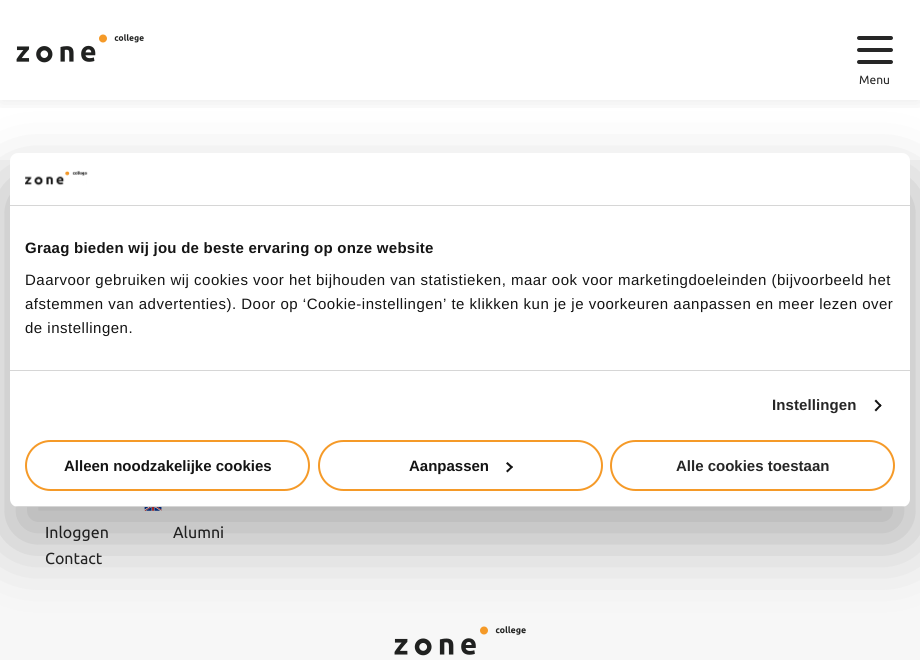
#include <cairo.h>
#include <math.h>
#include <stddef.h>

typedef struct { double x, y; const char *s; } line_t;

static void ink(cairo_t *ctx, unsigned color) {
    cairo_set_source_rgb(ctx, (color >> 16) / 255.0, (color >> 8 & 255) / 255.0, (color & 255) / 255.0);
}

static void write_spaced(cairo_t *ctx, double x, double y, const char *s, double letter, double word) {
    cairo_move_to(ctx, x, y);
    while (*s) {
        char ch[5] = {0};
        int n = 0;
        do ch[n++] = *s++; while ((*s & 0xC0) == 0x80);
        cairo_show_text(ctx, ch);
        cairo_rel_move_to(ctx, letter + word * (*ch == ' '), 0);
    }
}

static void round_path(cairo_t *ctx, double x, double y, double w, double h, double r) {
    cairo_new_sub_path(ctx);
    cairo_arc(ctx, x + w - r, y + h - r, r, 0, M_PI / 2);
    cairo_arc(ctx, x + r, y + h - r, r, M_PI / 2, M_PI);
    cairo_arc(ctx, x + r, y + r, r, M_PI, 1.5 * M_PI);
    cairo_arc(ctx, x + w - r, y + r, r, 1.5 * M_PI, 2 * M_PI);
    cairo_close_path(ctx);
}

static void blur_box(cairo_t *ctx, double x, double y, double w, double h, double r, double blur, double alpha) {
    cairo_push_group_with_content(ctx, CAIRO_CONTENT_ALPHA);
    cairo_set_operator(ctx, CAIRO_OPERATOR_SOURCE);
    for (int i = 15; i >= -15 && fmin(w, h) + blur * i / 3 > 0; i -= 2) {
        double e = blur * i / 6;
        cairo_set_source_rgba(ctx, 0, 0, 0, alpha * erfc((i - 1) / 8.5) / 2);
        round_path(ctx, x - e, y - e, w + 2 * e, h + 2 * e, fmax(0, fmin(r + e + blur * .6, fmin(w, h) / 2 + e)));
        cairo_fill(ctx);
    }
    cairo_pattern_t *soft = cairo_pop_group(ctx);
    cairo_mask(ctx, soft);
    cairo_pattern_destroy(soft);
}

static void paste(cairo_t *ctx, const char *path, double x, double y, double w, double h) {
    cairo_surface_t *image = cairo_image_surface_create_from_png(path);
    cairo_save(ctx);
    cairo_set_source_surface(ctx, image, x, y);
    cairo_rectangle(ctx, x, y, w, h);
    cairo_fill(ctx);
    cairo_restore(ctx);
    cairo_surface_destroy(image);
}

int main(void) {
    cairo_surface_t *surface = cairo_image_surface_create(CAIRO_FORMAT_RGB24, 920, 660);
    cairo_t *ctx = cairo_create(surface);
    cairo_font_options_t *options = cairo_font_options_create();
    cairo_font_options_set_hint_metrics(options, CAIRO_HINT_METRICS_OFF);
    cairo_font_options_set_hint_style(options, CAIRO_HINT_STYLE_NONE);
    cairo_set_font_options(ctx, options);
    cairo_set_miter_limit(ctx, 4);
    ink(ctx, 0xFFFFFF);
    cairo_paint(ctx);
    cairo_save(ctx);
    cairo_rectangle(ctx, 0, 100, 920, 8);
    cairo_clip(ctx);
    ink(ctx, 0x000000);
    blur_box(ctx, 0, 0, 920, 100, 0, 10, 0.1);
    cairo_restore(ctx);
    paste(ctx, "media/1.png", 16, 34, 128, 29);
    ink(ctx, 0x262626);
    round_path(ctx, 857, 36, 36, 4, 2);
    cairo_fill(ctx);
    round_path(ctx, 857, 48, 36, 4, 2);
    cairo_fill(ctx);
    round_path(ctx, 857, 60, 36, 4, 2);
    cairo_fill(ctx);
    cairo_select_font_face(ctx, "Ubuntu", CAIRO_FONT_SLANT_NORMAL, CAIRO_FONT_WEIGHT_NORMAL);
    cairo_set_font_size(ctx, 12);
    cairo_move_to(ctx, 859, 84);
    cairo_show_text(ctx, "Menu");
    ink(ctx, 0xF7F7F7);
    cairo_rectangle(ctx, 0, 160, 920, 500);
    cairo_fill(ctx);
    paste(ctx, "media/2.png", 144, 507, 18, 4);
    cairo_set_font_size(ctx, 16);
    ink(ctx, 0x262626);
    {
        static const line_t items[] = {
            {45, 538, "Inloggen"},
            {173, 538, "Alumni"},
            {45, 564, "Contact"},
        };
        for (size_t i = 0; i < sizeof items / sizeof *items; i++) {
            cairo_move_to(ctx, items[i].x, items[i].y);
            cairo_show_text(ctx, items[i].s);
        }
    }
    paste(ctx, "media/3.png", 394, 626, 132, 30);
    ink(ctx, 0x000000);
    blur_box(ctx, 10, 185, 900, 354, 8, 34, 0.3);
    ink(ctx, 0xFFFFFF);
    round_path(ctx, 10, 153, 900, 354, 8);
    cairo_fill(ctx);
    ink(ctx, 0xD6D6D6);
    cairo_rectangle(ctx, 10, 205, 900, 1);
    cairo_fill(ctx);
    paste(ctx, "media/4.png", 25, 170, 63, 16);
    cairo_rectangle(ctx, 10, 370, 900, 1);
    cairo_fill(ctx);
    cairo_select_font_face(ctx, "Liberation Sans", CAIRO_FONT_SLANT_NORMAL, CAIRO_FONT_WEIGHT_BOLD);
    cairo_set_font_size(ctx, 15);
    ink(ctx, 0x141414);
    write_spaced(ctx, 25, 253, "Graag bieden wij jou de beste ervaring op onze website", 0.25, 0);
    cairo_select_font_face(ctx, "Liberation Sans", CAIRO_FONT_SLANT_NORMAL, CAIRO_FONT_WEIGHT_NORMAL);
    {
        static const line_t items[] = {
            {25, 285, "Daarvoor gebruiken wij cookies voor het bijhouden van statistieken, maar ook voor marketingdoeleinden (bijvoorbeeld het"},
            {25, 309, "afstemmen van advertenties). Door op ‘Cookie-instellingen’ te klikken kun je je voorkeuren aanpassen en meer lezen over"},
            {25, 333, "de instellingen."},
        };
        for (size_t i = 0; i < sizeof items / sizeof *items; i++) {
            write_spaced(ctx, items[i].x, items[i].y, items[i].s, 0.5, 0);
        }
    }
    cairo_select_font_face(ctx, "Liberation Sans", CAIRO_FONT_SLANT_NORMAL, CAIRO_FONT_WEIGHT_BOLD);
    ink(ctx, 0x262626);
    write_spaced(ctx, 772, 410, "Instellingen", 0.1, 0);
    ink(ctx, 0x141414);
    cairo_new_path(ctx);
    cairo_move_to(ctx, 876, 399.5);
    cairo_line_to(ctx, 881.5, 405.5);
    cairo_line_to(ctx, 880.5, 407);
    cairo_line_to(ctx, 874.5, 401);
    cairo_close_path(ctx);
    cairo_fill(ctx);
    cairo_new_path(ctx);
    cairo_move_to(ctx, 880.5, 404);
    cairo_line_to(ctx, 881.5, 405.5);
    cairo_line_to(ctx, 876, 411.5);
    cairo_line_to(ctx, 874.5, 410);
    cairo_close_path(ctx);
    cairo_fill(ctx);
    cairo_save(ctx);
    round_path(ctx, 10, 153, 900, 354, 8);
    cairo_clip(ctx);
    ink(ctx, 0xD6D6D6);
    cairo_rectangle(ctx, 10, 506, 900, 1);
    cairo_fill(ctx);
    cairo_restore(ctx);
    round_path(ctx, 26, 441, 283, 49, 24.5);
    ink(ctx, 0xF59A28);
    cairo_stroke(ctx);
    ink(ctx, 0x141414);
    cairo_move_to(ctx, 64, 471);
    cairo_show_text(ctx, "Alleen noodzakelijke cookies");
    round_path(ctx, 319, 441, 283, 49, 24.5);
    ink(ctx, 0xF59A28);
    cairo_stroke(ctx);
    ink(ctx, 0x141414);
    cairo_move_to(ctx, 409, 471);
    cairo_show_text(ctx, "Aanpassen");
    cairo_new_path(ctx);
    cairo_move_to(ctx, 507.5, 462);
    cairo_line_to(ctx, 513, 467);
    cairo_line_to(ctx, 511.5, 468.5);
    cairo_line_to(ctx, 506, 463.5);
    cairo_close_path(ctx);
    cairo_fill(ctx);
    cairo_new_path(ctx);
    cairo_move_to(ctx, 511.5, 466);
    cairo_line_to(ctx, 513, 467);
    cairo_line_to(ctx, 507.5, 472.5);
    cairo_line_to(ctx, 506, 471);
    cairo_close_path(ctx);
    cairo_fill(ctx);
    round_path(ctx, 611, 441, 283, 49, 24.5);
    ink(ctx, 0xF59A28);
    cairo_stroke(ctx);
    ink(ctx, 0x262626);
    cairo_move_to(ctx, 676, 471);
    cairo_show_text(ctx, "Alle cookies toestaan");
    cairo_surface_write_to_png(surface, "image.png");
    cairo_font_options_destroy(options);
    cairo_destroy(ctx);
    cairo_surface_destroy(surface);
    return 0;
}
